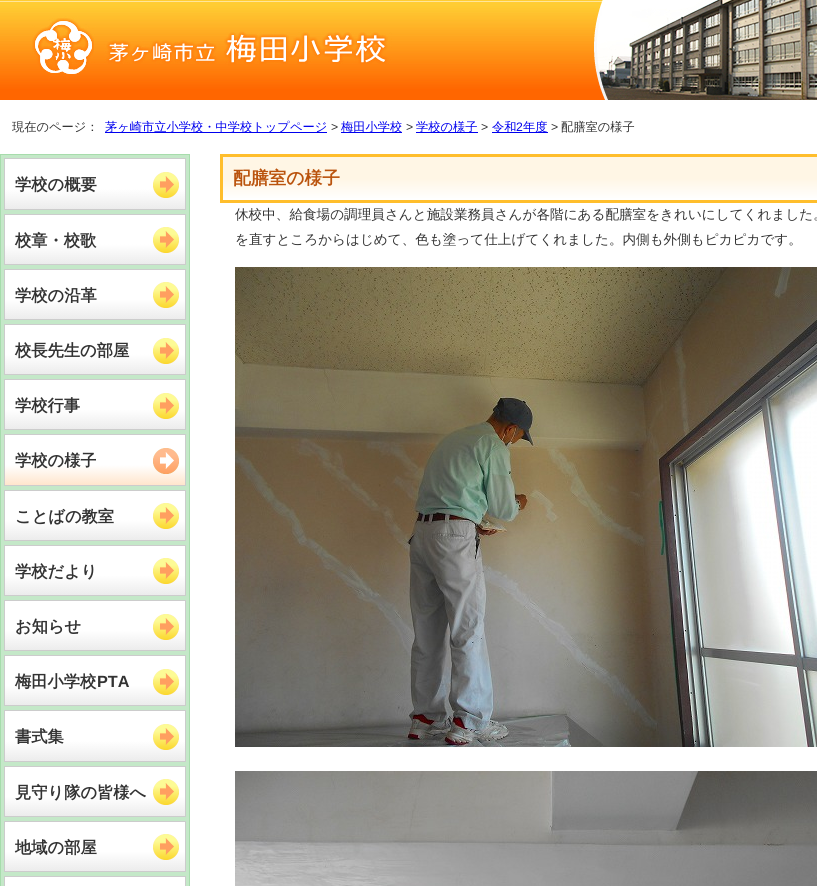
#include <cairo.h>
#include <math.h>
#include <stddef.h>


static void ink(cairo_t *ctx, unsigned color) {
    cairo_set_source_rgb(ctx, (color >> 16) / 255.0, (color >> 8 & 255) / 255.0, (color & 255) / 255.0);
}

static void paste(cairo_t *ctx, const char *path, double x, double y, double w, double h) {
    cairo_surface_t *image = cairo_image_surface_create_from_png(path);
    cairo_save(ctx);
    cairo_set_source_surface(ctx, image, x, y);
    cairo_rectangle(ctx, x, y, w, h);
    cairo_fill(ctx);
    cairo_restore(ctx);
    cairo_surface_destroy(image);
}

int main(void) {
    cairo_surface_t *surface = cairo_image_surface_create(CAIRO_FORMAT_RGB24, 817, 886);
    cairo_t *ctx = cairo_create(surface);
    cairo_font_options_t *options = cairo_font_options_create();
    cairo_font_options_set_hint_metrics(options, CAIRO_HINT_METRICS_OFF);
    cairo_font_options_set_hint_style(options, CAIRO_HINT_STYLE_NONE);
    cairo_set_font_options(ctx, options);
    cairo_set_miter_limit(ctx, 4);
    cairo_pattern_t *gradient;
    ink(ctx, 0xFFFFFF);
    cairo_paint(ctx);
    paste(ctx, "media/1.png", 0, 0, 817, 100);
    cairo_select_font_face(ctx, "WenQuanYi Zen Hei Medium", CAIRO_FONT_SLANT_NORMAL, CAIRO_FONT_WEIGHT_NORMAL);
    cairo_set_font_size(ctx, 12.25);
    ink(ctx, 0x333333);
    cairo_move_to(ctx, 12, 131);
    cairo_show_text(ctx, "現在のページ：");
    ink(ctx, 0x0000EE);
    cairo_rectangle(ctx, 105, 132, 222, 1);
    cairo_fill(ctx);
    cairo_move_to(ctx, 105, 131);
    cairo_show_text(ctx, "茅ヶ崎市立小学校・中学校トップページ");
    cairo_select_font_face(ctx, "Liberation Sans", CAIRO_FONT_SLANT_NORMAL, CAIRO_FONT_WEIGHT_NORMAL);
    ink(ctx, 0x333333);
    cairo_move_to(ctx, 331, 131);
    cairo_show_text(ctx, ">");
    ink(ctx, 0x0000EE);
    cairo_rectangle(ctx, 341, 132, 61, 1);
    cairo_fill(ctx);
    cairo_select_font_face(ctx, "WenQuanYi Zen Hei Medium", CAIRO_FONT_SLANT_NORMAL, CAIRO_FONT_WEIGHT_NORMAL);
    cairo_move_to(ctx, 341, 131);
    cairo_show_text(ctx, "梅田小学校");
    cairo_select_font_face(ctx, "Liberation Sans", CAIRO_FONT_SLANT_NORMAL, CAIRO_FONT_WEIGHT_NORMAL);
    ink(ctx, 0x333333);
    cairo_move_to(ctx, 406, 131);
    cairo_show_text(ctx, ">");
    ink(ctx, 0x0000EE);
    cairo_rectangle(ctx, 416, 132, 62, 1);
    cairo_fill(ctx);
    cairo_select_font_face(ctx, "WenQuanYi Zen Hei Medium", CAIRO_FONT_SLANT_NORMAL, CAIRO_FONT_WEIGHT_NORMAL);
    cairo_move_to(ctx, 416, 131);
    cairo_show_text(ctx, "学校の様子");
    cairo_select_font_face(ctx, "Liberation Sans", CAIRO_FONT_SLANT_NORMAL, CAIRO_FONT_WEIGHT_NORMAL);
    ink(ctx, 0x333333);
    cairo_move_to(ctx, 481, 131);
    cairo_show_text(ctx, ">");
    ink(ctx, 0x0000EE);
    cairo_rectangle(ctx, 492, 132, 56, 1);
    cairo_fill(ctx);
    cairo_select_font_face(ctx, "WenQuanYi Zen Hei Medium", CAIRO_FONT_SLANT_NORMAL, CAIRO_FONT_WEIGHT_NORMAL);
    cairo_move_to(ctx, 492, 131);
    cairo_show_text(ctx, "令和");
    cairo_select_font_face(ctx, "Liberation Sans", CAIRO_FONT_SLANT_NORMAL, CAIRO_FONT_WEIGHT_NORMAL);
    cairo_move_to(ctx, 516, 131);
    cairo_show_text(ctx, "2");
    cairo_select_font_face(ctx, "WenQuanYi Zen Hei Medium", CAIRO_FONT_SLANT_NORMAL, CAIRO_FONT_WEIGHT_NORMAL);
    cairo_move_to(ctx, 523, 131);
    cairo_show_text(ctx, "年度");
    cairo_select_font_face(ctx, "Liberation Sans", CAIRO_FONT_SLANT_NORMAL, CAIRO_FONT_WEIGHT_NORMAL);
    ink(ctx, 0x333333);
    cairo_move_to(ctx, 551, 131);
    cairo_show_text(ctx, ">");
    cairo_select_font_face(ctx, "WenQuanYi Zen Hei Medium", CAIRO_FONT_SLANT_NORMAL, CAIRO_FONT_WEIGHT_NORMAL);
    cairo_move_to(ctx, 561, 131);
    cairo_show_text(ctx, "配膳室の様子");
    ink(ctx, 0xC4E8C8);
    cairo_rectangle(ctx, 0.5, 154.5, 189, 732);
    cairo_fill_preserve(ctx);
    ink(ctx, 0xA7DCAC);
    cairo_set_line_width(ctx, 1);
    cairo_stroke(ctx);
    cairo_rectangle(ctx, 4.5, 158.5, 181, 51);
    ink(ctx, 0xCCCCCC);
    cairo_stroke(ctx);
    paste(ctx, "media/2.png", 5, 159, 180, 50);
    cairo_select_font_face(ctx, "WenQuanYi Zen Hei", CAIRO_FONT_SLANT_NORMAL, CAIRO_FONT_WEIGHT_BOLD);
    cairo_set_font_size(ctx, 16.25);
    ink(ctx, 0x333333);
    cairo_move_to(ctx, 15, 190);
    cairo_show_text(ctx, "学校の概要");
    cairo_rectangle(ctx, 4.5, 214.5, 181, 50);
    ink(ctx, 0xCCCCCC);
    cairo_stroke(ctx);
    paste(ctx, "media/3.png", 5, 215, 180, 49);
    ink(ctx, 0x333333);
    cairo_move_to(ctx, 15, 246);
    cairo_show_text(ctx, "校章・校歌");
    cairo_rectangle(ctx, 4.5, 269.5, 181, 50);
    ink(ctx, 0xCCCCCC);
    cairo_stroke(ctx);
    paste(ctx, "media/4.png", 5, 270, 180, 49);
    ink(ctx, 0x333333);
    cairo_move_to(ctx, 15, 301);
    cairo_show_text(ctx, "学校の沿革");
    cairo_rectangle(ctx, 4.5, 324.5, 181, 50);
    ink(ctx, 0xCCCCCC);
    cairo_stroke(ctx);
    paste(ctx, "media/5.png", 5, 325, 180, 49);
    ink(ctx, 0x333333);
    cairo_move_to(ctx, 15, 356);
    cairo_show_text(ctx, "校長先生の部屋");
    cairo_rectangle(ctx, 4.5, 379.5, 181, 50);
    ink(ctx, 0xCCCCCC);
    cairo_stroke(ctx);
    paste(ctx, "media/6.png", 5, 380, 180, 49);
    ink(ctx, 0x333333);
    cairo_move_to(ctx, 15, 411);
    cairo_show_text(ctx, "学校行事");
    cairo_rectangle(ctx, 4.5, 434.5, 181, 51);
    ink(ctx, 0xCCCCCC);
    cairo_stroke(ctx);
    paste(ctx, "media/7.png", 5, 435, 180, 50);
    ink(ctx, 0x333333);
    cairo_move_to(ctx, 15, 466);
    cairo_show_text(ctx, "学校の様子");
    cairo_rectangle(ctx, 4.5, 490.5, 181, 50);
    ink(ctx, 0xCCCCCC);
    cairo_stroke(ctx);
    paste(ctx, "media/8.png", 5, 491, 180, 49);
    ink(ctx, 0x333333);
    cairo_move_to(ctx, 15, 522);
    cairo_show_text(ctx, "ことばの教室");
    cairo_rectangle(ctx, 4.5, 545.5, 181, 50);
    ink(ctx, 0xCCCCCC);
    cairo_stroke(ctx);
    paste(ctx, "media/9.png", 5, 546, 180, 49);
    ink(ctx, 0x333333);
    cairo_move_to(ctx, 15, 577);
    cairo_show_text(ctx, "学校だより");
    cairo_rectangle(ctx, 4.5, 600.5, 181, 50);
    ink(ctx, 0xCCCCCC);
    cairo_stroke(ctx);
    paste(ctx, "media/10.png", 5, 601, 180, 49);
    ink(ctx, 0x333333);
    cairo_move_to(ctx, 15, 632);
    cairo_show_text(ctx, "お知らせ");
    cairo_rectangle(ctx, 4.5, 655.5, 181, 50);
    ink(ctx, 0xCCCCCC);
    cairo_stroke(ctx);
    paste(ctx, "media/11.png", 5, 656, 180, 49);
    ink(ctx, 0x333333);
    cairo_move_to(ctx, 15, 687);
    cairo_show_text(ctx, "梅田小学校");
    cairo_select_font_face(ctx, "Liberation Sans", CAIRO_FONT_SLANT_NORMAL, CAIRO_FONT_WEIGHT_BOLD);
    cairo_move_to(ctx, 97, 687);
    cairo_show_text(ctx, "PTA");
    cairo_rectangle(ctx, 4.5, 710.5, 181, 51);
    ink(ctx, 0xCCCCCC);
    cairo_stroke(ctx);
    paste(ctx, "media/12.png", 5, 711, 180, 50);
    cairo_select_font_face(ctx, "WenQuanYi Zen Hei", CAIRO_FONT_SLANT_NORMAL, CAIRO_FONT_WEIGHT_BOLD);
    ink(ctx, 0x333333);
    cairo_move_to(ctx, 15, 742);
    cairo_show_text(ctx, "書式集");
    cairo_rectangle(ctx, 4.5, 766.5, 181, 50);
    ink(ctx, 0xCCCCCC);
    cairo_stroke(ctx);
    paste(ctx, "media/13.png", 5, 767, 180, 49);
    ink(ctx, 0x333333);
    cairo_move_to(ctx, 15, 798);
    cairo_show_text(ctx, "見守り隊の皆様へ");
    cairo_rectangle(ctx, 4.5, 821.5, 181, 50);
    ink(ctx, 0xCCCCCC);
    cairo_stroke(ctx);
    paste(ctx, "media/14.png", 5, 822, 180, 49);
    ink(ctx, 0x333333);
    cairo_move_to(ctx, 15, 853);
    cairo_show_text(ctx, "地域の部屋");
    cairo_rectangle(ctx, 4.5, 876.5, 181, 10);
    ink(ctx, 0xCCCCCC);
    cairo_stroke(ctx);
    ink(ctx, 0xFFFFFF);
    cairo_rectangle(ctx, 5, 877, 180, 9);
    cairo_fill(ctx);
    gradient = cairo_pattern_create_linear(535, 157, 535, 200);
    cairo_pattern_add_color_stop_rgba(gradient, 0.5, 1, 0.965, 0.898, 1);
    cairo_pattern_add_color_stop_rgba(gradient, 1, 1, 1, 1, 1);
    cairo_set_source(ctx, gradient);
    cairo_pattern_destroy(gradient);
    cairo_rectangle(ctx, 223, 157, 594, 41);
    cairo_fill(ctx);
    cairo_rectangle(ctx, 221.5, 155.5, 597, 46);
    ink(ctx, 0xFFBE2C);
    cairo_set_line_width(ctx, 3);
    cairo_stroke(ctx);
    cairo_set_font_size(ctx, 17.75);
    ink(ctx, 0xBA530D);
    cairo_move_to(ctx, 233, 184);
    cairo_show_text(ctx, "配膳室の様子");
    cairo_select_font_face(ctx, "WenQuanYi Zen Hei Medium", CAIRO_FONT_SLANT_NORMAL, CAIRO_FONT_WEIGHT_NORMAL);
    cairo_set_font_size(ctx, 13.6);
    ink(ctx, 0x333333);
    cairo_move_to(ctx, 235, 219);
    cairo_show_text(ctx, "休校中、給食場の調理員さんと施設業務員さんが各階にある配膳室をきれいにしてくれました。");
    cairo_move_to(ctx, 235, 244);
    cairo_show_text(ctx, "を直すところからはじめて、色も塗って仕上げてくれました。内側も外側もピカピカです。");
    paste(ctx, "media/15.png", 235, 267, 582, 480);
    paste(ctx, "media/16.png", 235, 771, 582, 115);
    cairo_surface_write_to_png(surface, "image.png");
    cairo_font_options_destroy(options);
    cairo_destroy(ctx);
    cairo_surface_destroy(surface);
    return 0;
}
